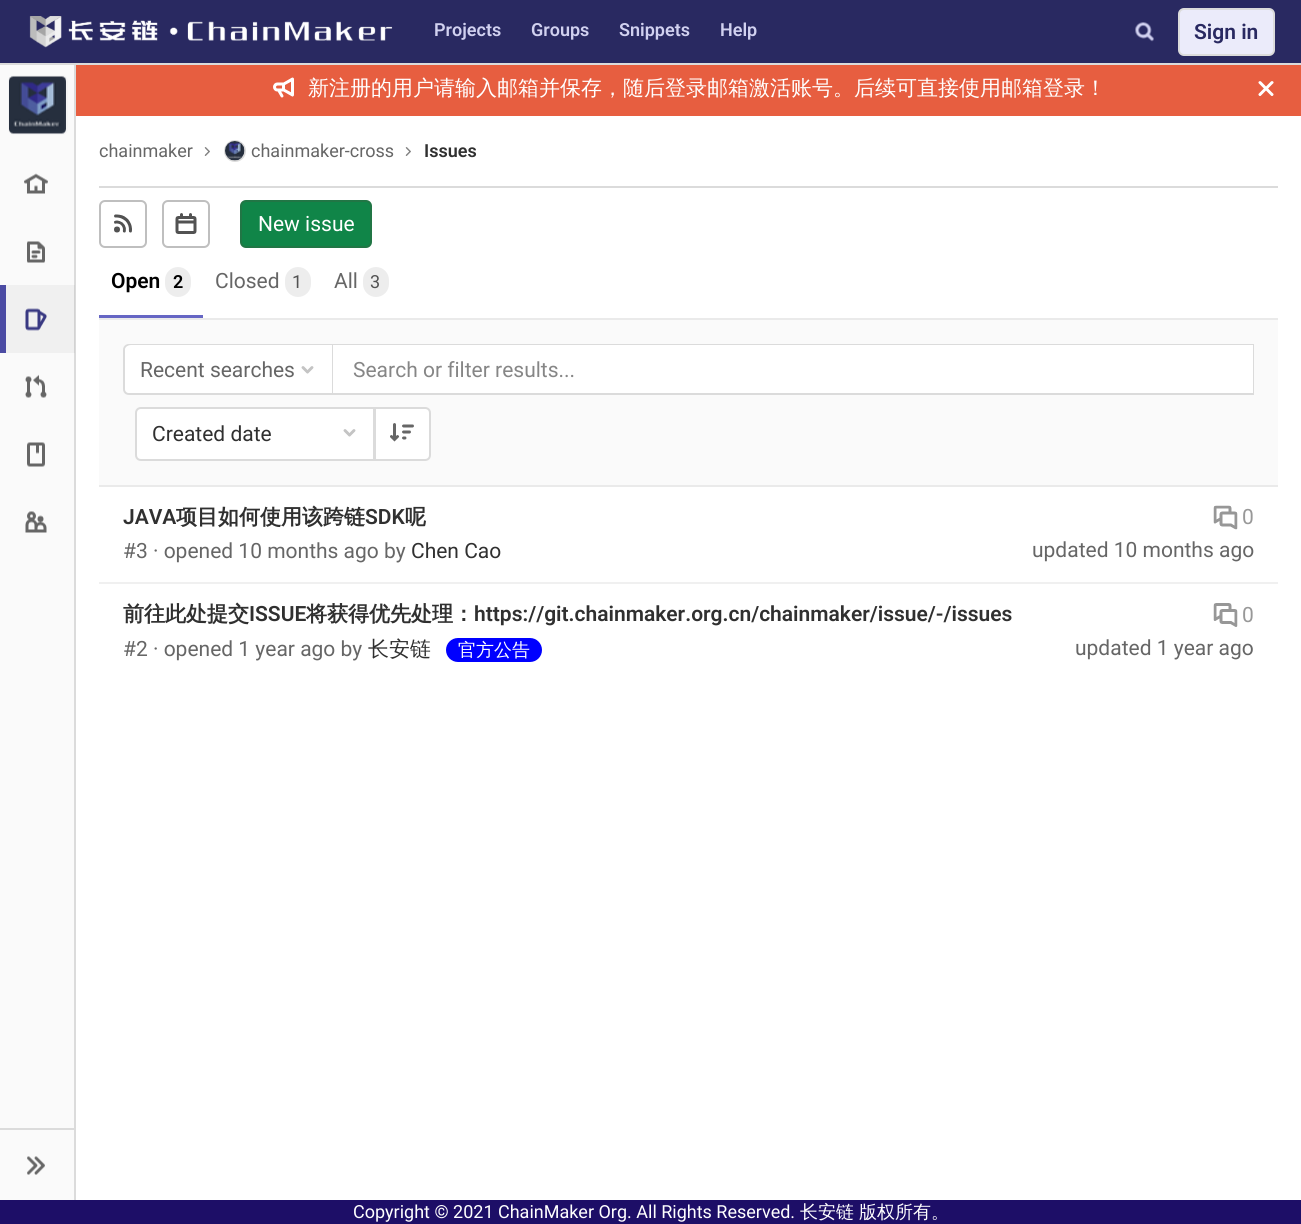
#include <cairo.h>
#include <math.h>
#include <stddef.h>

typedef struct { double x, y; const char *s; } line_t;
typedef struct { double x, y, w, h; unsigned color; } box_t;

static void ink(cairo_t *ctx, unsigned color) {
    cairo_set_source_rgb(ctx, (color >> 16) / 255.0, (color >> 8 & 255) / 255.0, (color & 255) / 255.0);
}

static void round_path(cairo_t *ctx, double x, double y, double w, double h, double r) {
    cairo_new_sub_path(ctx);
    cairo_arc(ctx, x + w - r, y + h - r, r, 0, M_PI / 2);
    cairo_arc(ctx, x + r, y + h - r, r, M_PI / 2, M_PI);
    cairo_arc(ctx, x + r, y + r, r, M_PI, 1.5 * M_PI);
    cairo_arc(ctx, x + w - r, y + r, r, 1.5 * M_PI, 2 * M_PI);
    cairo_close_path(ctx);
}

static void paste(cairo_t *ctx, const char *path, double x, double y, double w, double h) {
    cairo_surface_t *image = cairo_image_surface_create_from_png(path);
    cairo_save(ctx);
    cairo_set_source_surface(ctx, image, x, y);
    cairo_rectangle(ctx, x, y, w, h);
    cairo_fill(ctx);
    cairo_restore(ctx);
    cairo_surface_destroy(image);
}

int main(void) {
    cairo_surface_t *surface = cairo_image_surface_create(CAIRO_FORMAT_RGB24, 1301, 1224);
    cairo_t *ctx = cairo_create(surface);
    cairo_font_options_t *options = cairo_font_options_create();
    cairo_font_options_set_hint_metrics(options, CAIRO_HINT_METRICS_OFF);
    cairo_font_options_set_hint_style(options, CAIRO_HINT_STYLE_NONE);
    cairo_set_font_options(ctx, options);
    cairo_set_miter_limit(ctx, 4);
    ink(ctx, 0xFFFFFF);
    cairo_paint(ctx);
    {
        static const box_t items[] = {
            {74, 60, 2, 1140, 0xDBDBDB},
            {0, 0, 1301, 63, 0x292961},
            {0, 63, 1301, 2, 0xDBDBDB},
        };
        for (size_t i = 0; i < sizeof items / sizeof *items; i++) {
            ink(ctx, items[i].color);
            cairo_rectangle(ctx, items[i].x, items[i].y, items[i].w, items[i].h);
            cairo_fill(ctx);
        }
    }
    paste(ctx, "media/1.png", 29, 16, 364, 32);
    cairo_select_font_face(ctx, "Roboto SemiBold", CAIRO_FONT_SLANT_NORMAL, CAIRO_FONT_WEIGHT_NORMAL);
    cairo_set_font_size(ctx, 18);
    ink(ctx, 0xD1D1F0);
    {
        static const line_t items[] = {
            {434, 36, "Projects"},
            {531, 36, "Groups"},
            {619, 36, "Snippets"},
            {720, 36, "Help"},
        };
        for (size_t i = 0; i < sizeof items / sizeof *items; i++) {
            cairo_move_to(ctx, items[i].x, items[i].y);
            cairo_show_text(ctx, items[i].s);
        }
    }
    paste(ctx, "media/2.png", 1135, 22, 19, 20);
    ink(ctx, 0xEBEBFA);
    round_path(ctx, 1179, 9, 95, 46, 5);
    cairo_fill_preserve(ctx);
    ink(ctx, 0xDBDBDB);
    cairo_stroke(ctx);
    cairo_set_font_size(ctx, 21);
    ink(ctx, 0x292961);
    cairo_move_to(ctx, 1194, 39);
    cairo_show_text(ctx, "Sign in");
    {
        static const box_t items[] = {
            {0, 65, 74, 1135, 0xFAFAFA},
            {6, 285, 68, 68, 0xF0F0F0},
            {74, 285, 1, 68, 0xD2D2D2},
        };
        for (size_t i = 0; i < sizeof items / sizeof *items; i++) {
            ink(ctx, items[i].color);
            cairo_rectangle(ctx, items[i].x, items[i].y, items[i].w, items[i].h);
            cairo_fill(ctx);
        }
    }
    round_path(ctx, 9, 76, 58, 58, 5);
    ink(ctx, 0xF5F5F5);
    cairo_stroke(ctx);
    ink(ctx, 0xFDFDFD);
    round_path(ctx, 9, 77, 57, 57, 5);
    cairo_fill(ctx);
    paste(ctx, "media/3.png", 9, 76, 57, 58);
    paste(ctx, "media/4.png", 24, 173, 24, 21);
    paste(ctx, "media/5.png", 27, 241, 18, 22);
    ink(ctx, 0x4B4BA3);
    cairo_rectangle(ctx, 0, 285, 6, 68);
    cairo_fill(ctx);
    paste(ctx, "media/6.png", 25, 308, 22, 23);
    paste(ctx, "media/7.png", 25, 374, 22, 24);
    paste(ctx, "media/8.png", 27, 442, 18, 25);
    paste(ctx, "media/9.png", 25, 511, 22, 22);
    ink(ctx, 0xDBDBDB);
    cairo_rectangle(ctx, 0, 1128, 74, 2);
    cairo_fill(ctx);
    paste(ctx, "media/10.png", 27, 1156, 18, 19);
    ink(ctx, 0xE75E40);
    cairo_rectangle(ctx, 76, 65, 1225, 51);
    cairo_fill(ctx);
    paste(ctx, "media/11.png", 273, 77, 21, 21);
    cairo_select_font_face(ctx, "WenQuanYi Zen Hei Medium", CAIRO_FONT_SLANT_NORMAL, CAIRO_FONT_WEIGHT_NORMAL);
    ink(ctx, 0xFFFFFF);
    cairo_move_to(ctx, 308, 95);
    cairo_show_text(ctx, "新注册的用户请输入邮箱并保存，随后登录邮箱激活账号。后续可直接使用邮箱登录！");
    paste(ctx, "media/12.png", 1258, 81, 16, 15);
    ink(ctx, 0xDBDBDB);
    cairo_rectangle(ctx, 99, 186, 1179, 2);
    cairo_fill(ctx);
    cairo_select_font_face(ctx, "Roboto", CAIRO_FONT_SLANT_NORMAL, CAIRO_FONT_WEIGHT_NORMAL);
    cairo_set_font_size(ctx, 18);
    ink(ctx, 0x666666);
    cairo_move_to(ctx, 99, 157);
    cairo_show_text(ctx, "chainmaker");
    paste(ctx, "media/13.png", 204, 147, 6, 9);
    cairo_arc(ctx, 235, 151, 10, 0, 2 * M_PI);
    ink(ctx, 0xDBDBDB);
    cairo_stroke(ctx);
    paste(ctx, "media/14.png", 225, 141, 20, 20);
    ink(ctx, 0x666666);
    cairo_move_to(ctx, 251, 157);
    cairo_show_text(ctx, "chainmaker-cross");
    paste(ctx, "media/13.png", 405, 147, 6, 9);
    cairo_select_font_face(ctx, "Roboto SemiBold", CAIRO_FONT_SLANT_NORMAL, CAIRO_FONT_WEIGHT_NORMAL);
    ink(ctx, 0x303030);
    cairo_move_to(ctx, 424, 157);
    cairo_show_text(ctx, "Issues");
    round_path(ctx, 100, 201, 46, 46, 5);
    ink(ctx, 0xBFBFBF);
    cairo_stroke(ctx);
    paste(ctx, "media/15.png", 114, 214, 18, 19);
    round_path(ctx, 163, 201, 46, 46, 5);
    cairo_stroke(ctx);
    paste(ctx, "media/16.png", 175, 213, 22, 21);
    ink(ctx, 0x108548);
    round_path(ctx, 241, 201, 130, 46, 5);
    cairo_fill_preserve(ctx);
    ink(ctx, 0x217645);
    cairo_stroke(ctx);
    cairo_select_font_face(ctx, "Roboto", CAIRO_FONT_SLANT_NORMAL, CAIRO_FONT_WEIGHT_NORMAL);
    cairo_set_font_size(ctx, 21);
    ink(ctx, 0xFFFFFF);
    cairo_move_to(ctx, 258, 231);
    cairo_show_text(ctx, "New issue");
    ink(ctx, 0x6666C4);
    cairo_rectangle(ctx, 99, 315, 104, 3);
    cairo_fill(ctx);
    cairo_select_font_face(ctx, "Roboto SemiBold", CAIRO_FONT_SLANT_NORMAL, CAIRO_FONT_WEIGHT_NORMAL);
    ink(ctx, 0x000000);
    cairo_move_to(ctx, 111, 288);
    cairo_show_text(ctx, "Open");
    ink(ctx, 0xEDEDED);
    round_path(ctx, 165, 267, 26, 30, 13);
    cairo_fill(ctx);
    cairo_set_font_size(ctx, 18);
    ink(ctx, 0x000000);
    cairo_move_to(ctx, 173, 288);
    cairo_show_text(ctx, "2");
    cairo_select_font_face(ctx, "Roboto", CAIRO_FONT_SLANT_NORMAL, CAIRO_FONT_WEIGHT_NORMAL);
    cairo_set_font_size(ctx, 21);
    ink(ctx, 0x666666);
    cairo_move_to(ctx, 215, 288);
    cairo_show_text(ctx, "Closed");
    ink(ctx, 0xEDEDED);
    round_path(ctx, 285, 267, 26, 30, 13);
    cairo_fill(ctx);
    cairo_set_font_size(ctx, 18);
    ink(ctx, 0x525252);
    cairo_move_to(ctx, 292, 288);
    cairo_show_text(ctx, "1");
    cairo_set_font_size(ctx, 21);
    ink(ctx, 0x666666);
    cairo_move_to(ctx, 334, 288);
    cairo_show_text(ctx, "All");
    ink(ctx, 0xEDEDED);
    round_path(ctx, 363, 267, 26, 30, 13);
    cairo_fill(ctx);
    cairo_set_font_size(ctx, 18);
    ink(ctx, 0x525252);
    cairo_move_to(ctx, 370, 288);
    cairo_show_text(ctx, "3");
    {
        static const box_t items[] = {
            {99, 320, 1179, 165, 0xFAFAFA},
            {99, 318, 1179, 2, 0xEAEAEA},
            {99, 485, 1179, 2, 0xEAEAEA},
        };
        for (size_t i = 0; i < sizeof items / sizeof *items; i++) {
            ink(ctx, items[i].color);
            cairo_rectangle(ctx, items[i].x, items[i].y, items[i].w, items[i].h);
            cairo_fill(ctx);
        }
    }
    ink(ctx, 0xFFFFFF);
    cairo_new_path(ctx);
    cairo_move_to(ctx, 129, 345);
    cairo_line_to(ctx, 1253, 345);
    cairo_line_to(ctx, 1253, 394);
    cairo_line_to(ctx, 129, 394);
    cairo_curve_to(ctx, 126, 394, 124, 392, 124, 389);
    cairo_line_to(ctx, 124, 350);
    cairo_curve_to(ctx, 124, 347, 126, 345, 129, 345);
    cairo_close_path(ctx);
    cairo_fill_preserve(ctx);
    ink(ctx, 0xDBDBDB);
    cairo_stroke(ctx);
    ink(ctx, 0xFFFFFF);
    cairo_new_path(ctx);
    cairo_move_to(ctx, 131, 345);
    cairo_line_to(ctx, 333, 345);
    cairo_line_to(ctx, 333, 393);
    cairo_line_to(ctx, 131, 393);
    cairo_curve_to(ctx, 127.5, 393, 125, 390.5, 125, 387);
    cairo_line_to(ctx, 125, 351);
    cairo_curve_to(ctx, 125, 347.5, 127.5, 345, 131, 345);
    cairo_close_path(ctx);
    cairo_fill(ctx);
    ink(ctx, 0xDBDBDB);
    cairo_rectangle(ctx, 332, 345, 1, 48);
    cairo_fill(ctx);
    cairo_set_font_size(ctx, 21);
    ink(ctx, 0x666666);
    cairo_move_to(ctx, 140, 377);
    cairo_show_text(ctx, "Recent searches");
    paste(ctx, "media/17.png", 301, 366, 13, 8);
    ink(ctx, 0xFFFFFF);
    cairo_rectangle(ctx, 333, 345, 920, 48);
    cairo_fill(ctx);
    ink(ctx, 0x868686);
    cairo_move_to(ctx, 353, 377);
    cairo_show_text(ctx, "Search or filter results...");
    ink(ctx, 0xFFFFFF);
    cairo_new_path(ctx);
    cairo_move_to(ctx, 141, 408);
    cairo_line_to(ctx, 374, 408);
    cairo_line_to(ctx, 374, 460);
    cairo_line_to(ctx, 141, 460);
    cairo_curve_to(ctx, 138, 460, 136, 458, 136, 455);
    cairo_line_to(ctx, 136, 413);
    cairo_curve_to(ctx, 136, 410, 138, 408, 141, 408);
    cairo_close_path(ctx);
    cairo_fill_preserve(ctx);
    ink(ctx, 0xDBDBDB);
    cairo_stroke(ctx);
    ink(ctx, 0x303030);
    cairo_move_to(ctx, 152, 441);
    cairo_show_text(ctx, "Created date");
    paste(ctx, "media/17.png", 343, 429, 13, 8);
    ink(ctx, 0xFFFFFF);
    cairo_new_path(ctx);
    cairo_move_to(ctx, 375, 408);
    cairo_line_to(ctx, 425, 408);
    cairo_curve_to(ctx, 428, 408, 430, 410, 430, 413);
    cairo_line_to(ctx, 430, 455);
    cairo_curve_to(ctx, 430, 458, 428, 460, 425, 460);
    cairo_line_to(ctx, 375, 460);
    cairo_close_path(ctx);
    cairo_fill_preserve(ctx);
    ink(ctx, 0xDBDBDB);
    cairo_stroke(ctx);
    paste(ctx, "media/18.png", 390, 423, 24, 19);
    ink(ctx, 0xF0F0F0);
    cairo_rectangle(ctx, 99, 582, 1179, 2);
    cairo_fill(ctx);
    cairo_select_font_face(ctx, "Roboto SemiBold", CAIRO_FONT_SLANT_NORMAL, CAIRO_FONT_WEIGHT_NORMAL);
    ink(ctx, 0x303030);
    cairo_move_to(ctx, 123, 524);
    cairo_show_text(ctx, "JAVA");
    cairo_select_font_face(ctx, "WenQuanYi Zen Hei", CAIRO_FONT_SLANT_NORMAL, CAIRO_FONT_WEIGHT_BOLD);
    cairo_move_to(ctx, 176, 524);
    cairo_show_text(ctx, "项目如何使用该跨链");
    cairo_select_font_face(ctx, "Roboto SemiBold", CAIRO_FONT_SLANT_NORMAL, CAIRO_FONT_WEIGHT_NORMAL);
    cairo_move_to(ctx, 365, 524);
    cairo_show_text(ctx, "SDK");
    cairo_select_font_face(ctx, "WenQuanYi Zen Hei", CAIRO_FONT_SLANT_NORMAL, CAIRO_FONT_WEIGHT_BOLD);
    cairo_move_to(ctx, 405, 524);
    cairo_show_text(ctx, "呢");
    cairo_select_font_face(ctx, "Roboto", CAIRO_FONT_SLANT_NORMAL, CAIRO_FONT_WEIGHT_NORMAL);
    ink(ctx, 0x666666);
    cairo_move_to(ctx, 123, 558);
    cairo_show_text(ctx, "#3 · opened 10 months ago by");
    ink(ctx, 0x303030);
    cairo_move_to(ctx, 411, 558);
    cairo_show_text(ctx, "Chen Cao");
    paste(ctx, "media/19.png", 1213, 505, 25, 25);
    ink(ctx, 0x989898);
    cairo_move_to(ctx, 1242, 524);
    cairo_show_text(ctx, "0");
    ink(ctx, 0x666666);
    cairo_move_to(ctx, 1032, 557);
    cairo_show_text(ctx, "updated 10 months ago");
    cairo_select_font_face(ctx, "WenQuanYi Zen Hei", CAIRO_FONT_SLANT_NORMAL, CAIRO_FONT_WEIGHT_BOLD);
    ink(ctx, 0x303030);
    cairo_move_to(ctx, 123, 621);
    cairo_show_text(ctx, "前往此处提交");
    cairo_select_font_face(ctx, "Roboto SemiBold", CAIRO_FONT_SLANT_NORMAL, CAIRO_FONT_WEIGHT_NORMAL);
    cairo_move_to(ctx, 249, 621);
    cairo_show_text(ctx, "ISSUE");
    cairo_select_font_face(ctx, "WenQuanYi Zen Hei", CAIRO_FONT_SLANT_NORMAL, CAIRO_FONT_WEIGHT_BOLD);
    cairo_move_to(ctx, 306, 621);
    cairo_show_text(ctx, "将获得优先处理：");
    cairo_select_font_face(ctx, "Roboto SemiBold", CAIRO_FONT_SLANT_NORMAL, CAIRO_FONT_WEIGHT_NORMAL);
    cairo_move_to(ctx, 474, 621);
    cairo_show_text(ctx, "https://git.chainmaker.org.cn/chainmaker/issue/-/issues");
    cairo_select_font_face(ctx, "Roboto", CAIRO_FONT_SLANT_NORMAL, CAIRO_FONT_WEIGHT_NORMAL);
    ink(ctx, 0x666666);
    cairo_move_to(ctx, 123, 656);
    cairo_show_text(ctx, "#2 · opened 1 year ago by");
    cairo_select_font_face(ctx, "WenQuanYi Zen Hei Medium", CAIRO_FONT_SLANT_NORMAL, CAIRO_FONT_WEIGHT_NORMAL);
    ink(ctx, 0x303030);
    cairo_move_to(ctx, 368, 656);
    cairo_show_text(ctx, "长安链");
    ink(ctx, 0x0000FF);
    round_path(ctx, 446, 638, 96, 24, 12);
    cairo_fill(ctx);
    cairo_set_font_size(ctx, 18);
    ink(ctx, 0xFFFFFF);
    cairo_move_to(ctx, 458, 656);
    cairo_show_text(ctx, "官方公告");
    paste(ctx, "media/20.png", 1213, 603, 25, 24);
    cairo_select_font_face(ctx, "Roboto", CAIRO_FONT_SLANT_NORMAL, CAIRO_FONT_WEIGHT_NORMAL);
    cairo_set_font_size(ctx, 21);
    ink(ctx, 0x989898);
    cairo_move_to(ctx, 1242, 622);
    cairo_show_text(ctx, "0");
    ink(ctx, 0x666666);
    cairo_move_to(ctx, 1075, 655);
    cairo_show_text(ctx, "updated 1 year ago");
    ink(ctx, 0x1D0E67);
    cairo_rectangle(ctx, 0, 1200, 1301, 24);
    cairo_fill(ctx);
    cairo_set_font_size(ctx, 18);
    ink(ctx, 0xFFFFFF);
    cairo_move_to(ctx, 353, 1218);
    cairo_show_text(ctx, "Copyright © 2021 ChainMaker Org. All Rights Reserved.");
    cairo_select_font_face(ctx, "WenQuanYi Zen Hei Medium", CAIRO_FONT_SLANT_NORMAL, CAIRO_FONT_WEIGHT_NORMAL);
    cairo_move_to(ctx, 800, 1218);
    cairo_show_text(ctx, "长安链");
    cairo_move_to(ctx, 859, 1218);
    cairo_show_text(ctx, "版权所有。");
    cairo_surface_write_to_png(surface, "image.png");
    cairo_font_options_destroy(options);
    cairo_destroy(ctx);
    cairo_surface_destroy(surface);
    return 0;
}
